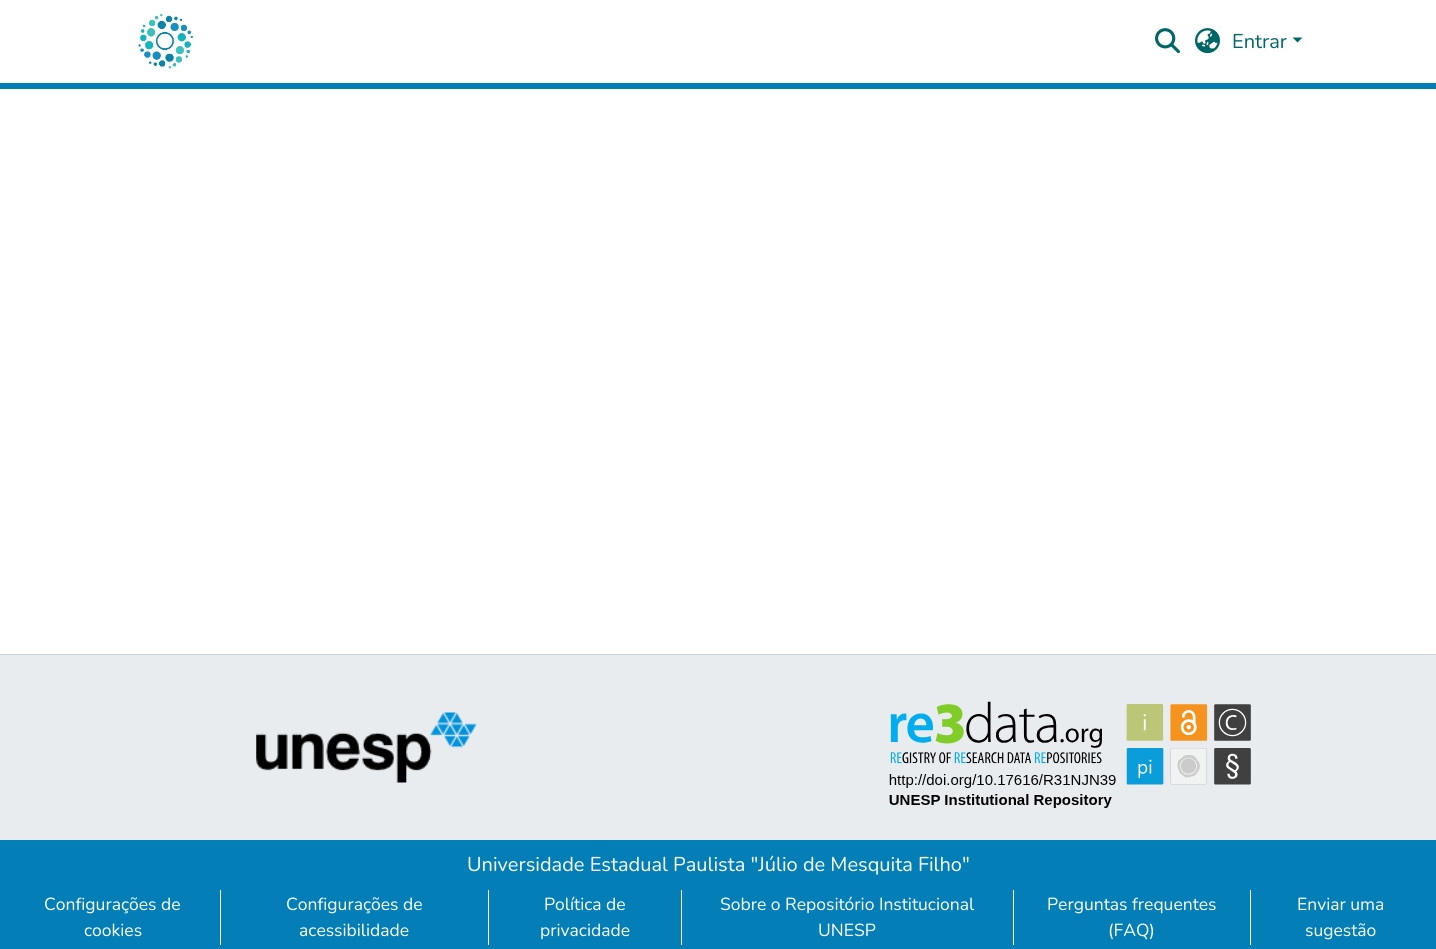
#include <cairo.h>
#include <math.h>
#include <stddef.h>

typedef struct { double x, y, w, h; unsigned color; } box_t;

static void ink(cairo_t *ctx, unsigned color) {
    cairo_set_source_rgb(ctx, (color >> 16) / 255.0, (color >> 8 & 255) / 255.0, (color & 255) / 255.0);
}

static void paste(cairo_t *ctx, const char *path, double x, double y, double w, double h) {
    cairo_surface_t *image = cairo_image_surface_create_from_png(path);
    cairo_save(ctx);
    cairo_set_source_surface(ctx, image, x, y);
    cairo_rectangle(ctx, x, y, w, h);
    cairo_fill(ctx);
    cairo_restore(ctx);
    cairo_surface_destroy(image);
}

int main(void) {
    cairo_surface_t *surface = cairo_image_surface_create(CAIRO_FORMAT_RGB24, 1436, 949);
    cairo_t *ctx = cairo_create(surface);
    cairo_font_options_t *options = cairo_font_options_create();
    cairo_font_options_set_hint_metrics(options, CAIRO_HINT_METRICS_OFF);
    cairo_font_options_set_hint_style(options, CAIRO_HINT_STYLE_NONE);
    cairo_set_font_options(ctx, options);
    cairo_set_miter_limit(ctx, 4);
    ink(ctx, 0xFFFFFF);
    cairo_paint(ctx);
    ink(ctx, 0x037EB6);
    cairo_rectangle(ctx, 0, 83, 1436, 6);
    cairo_fill(ctx);
    paste(ctx, "media/1.png", 138, 14, 55, 55);
    paste(ctx, "media/2.png", 1155, 28, 25, 26);
    paste(ctx, "media/3.png", 1195, 28, 25, 26);
    cairo_select_font_face(ctx, "Nunito", CAIRO_FONT_SLANT_NORMAL, CAIRO_FONT_WEIGHT_NORMAL);
    cairo_set_font_size(ctx, 20);
    ink(ctx, 0x006666);
    cairo_move_to(ctx, 1232, 48);
    cairo_show_text(ctx, "Entrar");
    cairo_new_path(ctx);
    cairo_move_to(ctx, 1292.5, 37.5);
    cairo_line_to(ctx, 1302.5, 37.5);
    cairo_line_to(ctx, 1297.5, 42.5);
    cairo_close_path(ctx);
    cairo_fill(ctx);
    {
        static const box_t items[] = {
            {0, 840, 1436, 109, 0x037EB6},
            {0, 654, 1436, 1, 0xCED4DA},
            {0, 655, 1436, 185, 0xE9ECEF},
        };
        for (size_t i = 0; i < sizeof items / sizeof *items; i++) {
            ink(ctx, items[i].color);
            cairo_rectangle(ctx, items[i].x, items[i].y, items[i].w, items[i].h);
            cairo_fill(ctx);
        }
    }
    paste(ctx, "media/4.png", 256, 712, 221, 71);
    paste(ctx, "media/5.png", 889, 701, 362, 107);
    ink(ctx, 0xFFFFFF);
    cairo_move_to(ctx, 467, 871);
    cairo_show_text(ctx, "Universidade Estadual Paulista \"Júlio de Mesquita Filho\"");
    cairo_set_font_size(ctx, 17.5);
    cairo_move_to(ctx, 44, 910);
    cairo_show_text(ctx, "Configurações de");
    cairo_move_to(ctx, 84, 936);
    cairo_show_text(ctx, "cookies");
    cairo_rectangle(ctx, 220, 890, 1, 55);
    cairo_fill(ctx);
    cairo_move_to(ctx, 286, 910);
    cairo_show_text(ctx, "Configurações de");
    cairo_move_to(ctx, 299, 936);
    cairo_show_text(ctx, "acessibilidade");
    cairo_rectangle(ctx, 488, 890, 1, 55);
    cairo_fill(ctx);
    cairo_move_to(ctx, 544, 910);
    cairo_show_text(ctx, "Política de");
    cairo_move_to(ctx, 540, 936);
    cairo_show_text(ctx, "privacidade");
    cairo_rectangle(ctx, 681, 890, 1, 55);
    cairo_fill(ctx);
    cairo_move_to(ctx, 720, 910);
    cairo_show_text(ctx, "Sobre o Repositório Institucional");
    cairo_move_to(ctx, 818, 936);
    cairo_show_text(ctx, "UNESP");
    cairo_rectangle(ctx, 1013, 890, 1, 55);
    cairo_fill(ctx);
    cairo_move_to(ctx, 1047, 910);
    cairo_show_text(ctx, "Perguntas frequentes");
    cairo_move_to(ctx, 1108, 936);
    cairo_show_text(ctx, "(FAQ)");
    cairo_rectangle(ctx, 1250, 890, 1, 55);
    cairo_fill(ctx);
    cairo_move_to(ctx, 1297, 910);
    cairo_show_text(ctx, "Enviar uma");
    cairo_move_to(ctx, 1305, 936);
    cairo_show_text(ctx, "sugestão");
    cairo_surface_write_to_png(surface, "image.png");
    cairo_font_options_destroy(options);
    cairo_destroy(ctx);
    cairo_surface_destroy(surface);
    return 0;
}
